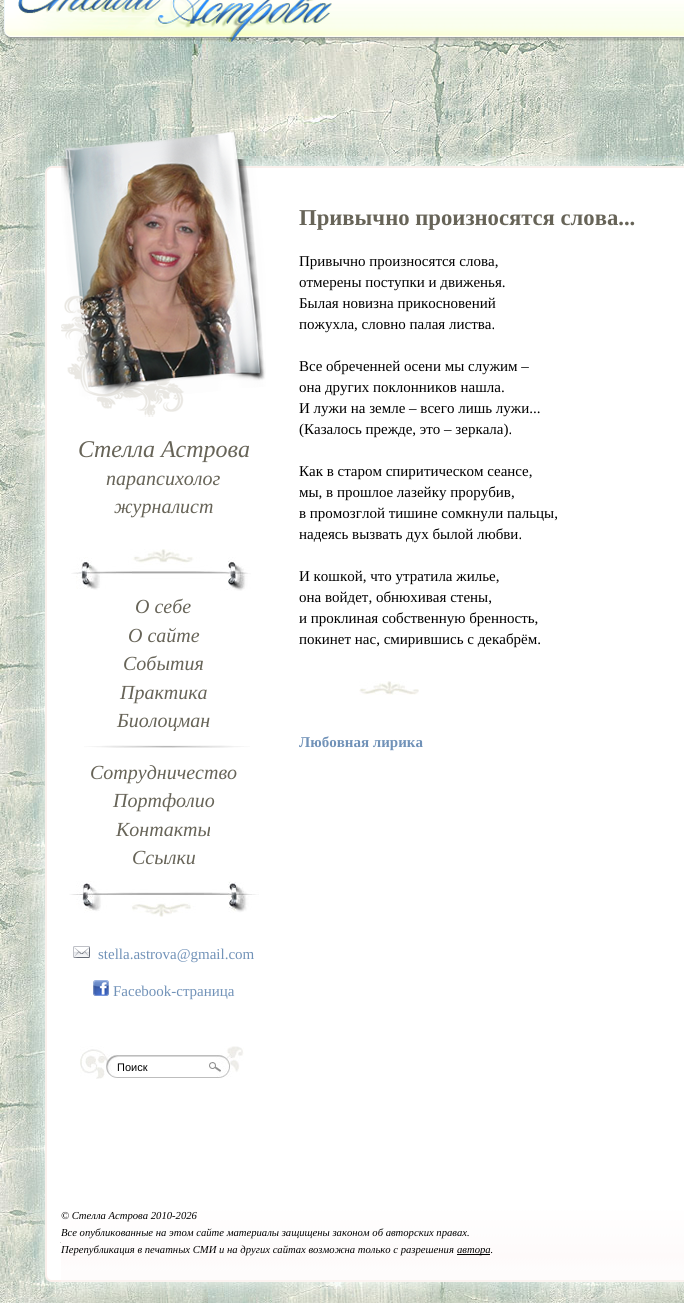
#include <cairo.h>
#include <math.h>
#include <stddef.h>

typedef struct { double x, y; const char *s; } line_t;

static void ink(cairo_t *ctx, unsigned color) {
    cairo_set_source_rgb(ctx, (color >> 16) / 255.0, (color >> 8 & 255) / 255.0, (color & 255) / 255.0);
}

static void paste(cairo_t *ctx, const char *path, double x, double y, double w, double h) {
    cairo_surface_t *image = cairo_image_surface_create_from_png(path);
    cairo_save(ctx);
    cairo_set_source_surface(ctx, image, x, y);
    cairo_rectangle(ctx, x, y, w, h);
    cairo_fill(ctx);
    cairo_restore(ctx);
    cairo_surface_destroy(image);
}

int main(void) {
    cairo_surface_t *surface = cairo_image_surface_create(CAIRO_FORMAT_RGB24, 684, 1303);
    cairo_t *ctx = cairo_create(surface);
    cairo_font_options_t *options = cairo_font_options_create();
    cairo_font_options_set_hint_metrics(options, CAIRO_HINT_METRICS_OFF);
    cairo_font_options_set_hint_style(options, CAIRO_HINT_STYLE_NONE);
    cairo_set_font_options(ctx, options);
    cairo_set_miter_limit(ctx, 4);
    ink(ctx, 0xFFFFFF);
    cairo_paint(ctx);
    paste(ctx, "media/1.png", 0, 0, 684, 1303);
    paste(ctx, "media/2.png", 4, 0, 330, 42);
    paste(ctx, "media/3.png", 334, 0, 30, 41);
    paste(ctx, "media/4.png", 364, 0, 320, 41);
    paste(ctx, "media/5.png", 31, 156, 27, 30);
    paste(ctx, "media/6.png", 58, 156, 626, 30);
    paste(ctx, "media/7.png", 30, 186, 28, 1021);
    ink(ctx, 0xFFFFFF);
    cairo_rectangle(ctx, 58, 186, 626, 1021);
    cairo_fill(ctx);
    paste(ctx, "media/8.png", 61, 130, 202, 287);
    paste(ctx, "media/9.png", 64, 131, 202, 286);
    cairo_select_font_face(ctx, "Liberation Serif", CAIRO_FONT_SLANT_ITALIC, CAIRO_FONT_WEIGHT_NORMAL);
    cairo_set_font_size(ctx, 24);
    ink(ctx, 0x676458);
    cairo_move_to(ctx, 78, 457);
    cairo_show_text(ctx, "Стелла Астрова");
    cairo_set_font_size(ctx, 20);
    cairo_move_to(ctx, 106, 485);
    cairo_show_text(ctx, "парапсихолог");
    cairo_move_to(ctx, 114, 513);
    cairo_show_text(ctx, "журналист");
    paste(ctx, "media/10.png", 71, 549, 180, 42);
    {
        static const line_t items[] = {
            {135, 613, "О себе"},
            {128, 642, "О сайте"},
            {123, 670, "События"},
            {120, 699, "Практика"},
            {117, 727, "Биолоцман"},
        };
        for (size_t i = 0; i < sizeof items / sizeof *items; i++) {
            cairo_move_to(ctx, items[i].x, items[i].y);
            cairo_show_text(ctx, items[i].s);
        }
    }
    paste(ctx, "media/11.png", 84, 745, 166, 3);
    {
        static const line_t items[] = {
            {90, 779, "Сотрудничество"},
            {113, 807, "Портфолио"},
            {116, 836, "Контакты"},
            {132, 864, "Ссылки"},
        };
        for (size_t i = 0; i < sizeof items / sizeof *items; i++) {
            cairo_move_to(ctx, items[i].x, items[i].y);
            cairo_show_text(ctx, items[i].s);
        }
    }
    paste(ctx, "media/12.png", 69, 881, 190, 36);
    paste(ctx, "media/13.png", 73, 946, 17, 12);
    cairo_select_font_face(ctx, "Liberation Serif", CAIRO_FONT_SLANT_NORMAL, CAIRO_FONT_WEIGHT_NORMAL);
    cairo_set_font_size(ctx, 15);
    ink(ctx, 0x7192B8);
    cairo_move_to(ctx, 98, 959);
    cairo_show_text(ctx, "stella.astrova@gmail.com");
    paste(ctx, "media/14.png", 93, 980, 16, 16);
    cairo_move_to(ctx, 113, 996);
    cairo_show_text(ctx, "Facebook-страница");
    paste(ctx, "media/15.png", 80, 1046, 164, 33);
    cairo_select_font_face(ctx, "Liberation Sans", CAIRO_FONT_SLANT_NORMAL, CAIRO_FONT_WEIGHT_NORMAL);
    cairo_set_font_size(ctx, 11);
    ink(ctx, 0x000000);
    cairo_move_to(ctx, 117, 1071);
    cairo_show_text(ctx, "Поиск");
    cairo_select_font_face(ctx, "Liberation Serif", CAIRO_FONT_SLANT_NORMAL, CAIRO_FONT_WEIGHT_BOLD);
    cairo_set_font_size(ctx, 22.7);
    ink(ctx, 0x676458);
    cairo_move_to(ctx, 299, 225);
    cairo_show_text(ctx, "Привычно произносятся слова...");
    cairo_select_font_face(ctx, "Liberation Serif", CAIRO_FONT_SLANT_NORMAL, CAIRO_FONT_WEIGHT_NORMAL);
    cairo_set_font_size(ctx, 15);
    ink(ctx, 0x000000);
    {
        static const line_t items[] = {
            {299, 266, "Привычно произносятся слова,"},
            {299, 287, "отмерены поступки и движенья."},
            {299, 308, "Былая новизна прикосновений"},
            {299, 329, "пожухла, словно палая листва."},
            {299, 371, "Все обреченней осени мы служим –"},
            {299, 392, "она других поклонников нашла."},
            {299, 413, "И лужи на земле – всего лишь лужи..."},
            {299, 434, "(Казалось прежде, это – зеркала)."},
            {299, 476, "Как в старом спиритическом сеансе,"},
            {299, 497, "мы, в прошлое лазейку прорубив,"},
            {299, 518, "в промозглой тишине сомкнули пальцы,"},
            {299, 539, "надеясь вызвать дух былой любви."},
            {299, 581, "И кошкой, что утратила жилье,"},
            {299, 602, "она войдет, обнюхивая стены,"},
            {299, 623, "и проклиная собственную бренность,"},
            {299, 644, "покинет нас, смирившись с декабрём."},
        };
        for (size_t i = 0; i < sizeof items / sizeof *items; i++) {
            cairo_move_to(ctx, items[i].x, items[i].y);
            cairo_show_text(ctx, items[i].s);
        }
    }
    paste(ctx, "media/16.png", 359, 681, 60, 14);
    cairo_select_font_face(ctx, "Liberation Serif", CAIRO_FONT_SLANT_NORMAL, CAIRO_FONT_WEIGHT_BOLD);
    ink(ctx, 0x7192B8);
    cairo_move_to(ctx, 299, 747);
    cairo_show_text(ctx, "Любовная лирика");
    paste(ctx, "media/17.png", 30, 1207, 31, 87);
    paste(ctx, "media/18.png", 61, 1207, 623, 90);
    cairo_select_font_face(ctx, "Liberation Serif", CAIRO_FONT_SLANT_ITALIC, CAIRO_FONT_WEIGHT_NORMAL);
    cairo_set_font_size(ctx, 10.65);
    ink(ctx, 0x000000);
    {
        static const line_t items[] = {
            {61, 1219, "© Стелла Астрова 2010-2026"},
            {61, 1236, "Все опубликованные на этом сайте материалы защищены законом об авторских правах."},
            {61, 1253, "Перепубликация в печатных СМИ и на других сайтах возможна только с разрешения"},
        };
        for (size_t i = 0; i < sizeof items / sizeof *items; i++) {
            cairo_move_to(ctx, items[i].x, items[i].y);
            cairo_show_text(ctx, items[i].s);
        }
    }
    cairo_rectangle(ctx, 457, 1254, 33, 1);
    cairo_fill(ctx);
    cairo_move_to(ctx, 457, 1253);
    cairo_show_text(ctx, "автора.");
    cairo_surface_write_to_png(surface, "image.png");
    cairo_font_options_destroy(options);
    cairo_destroy(ctx);
    cairo_surface_destroy(surface);
    return 0;
}
